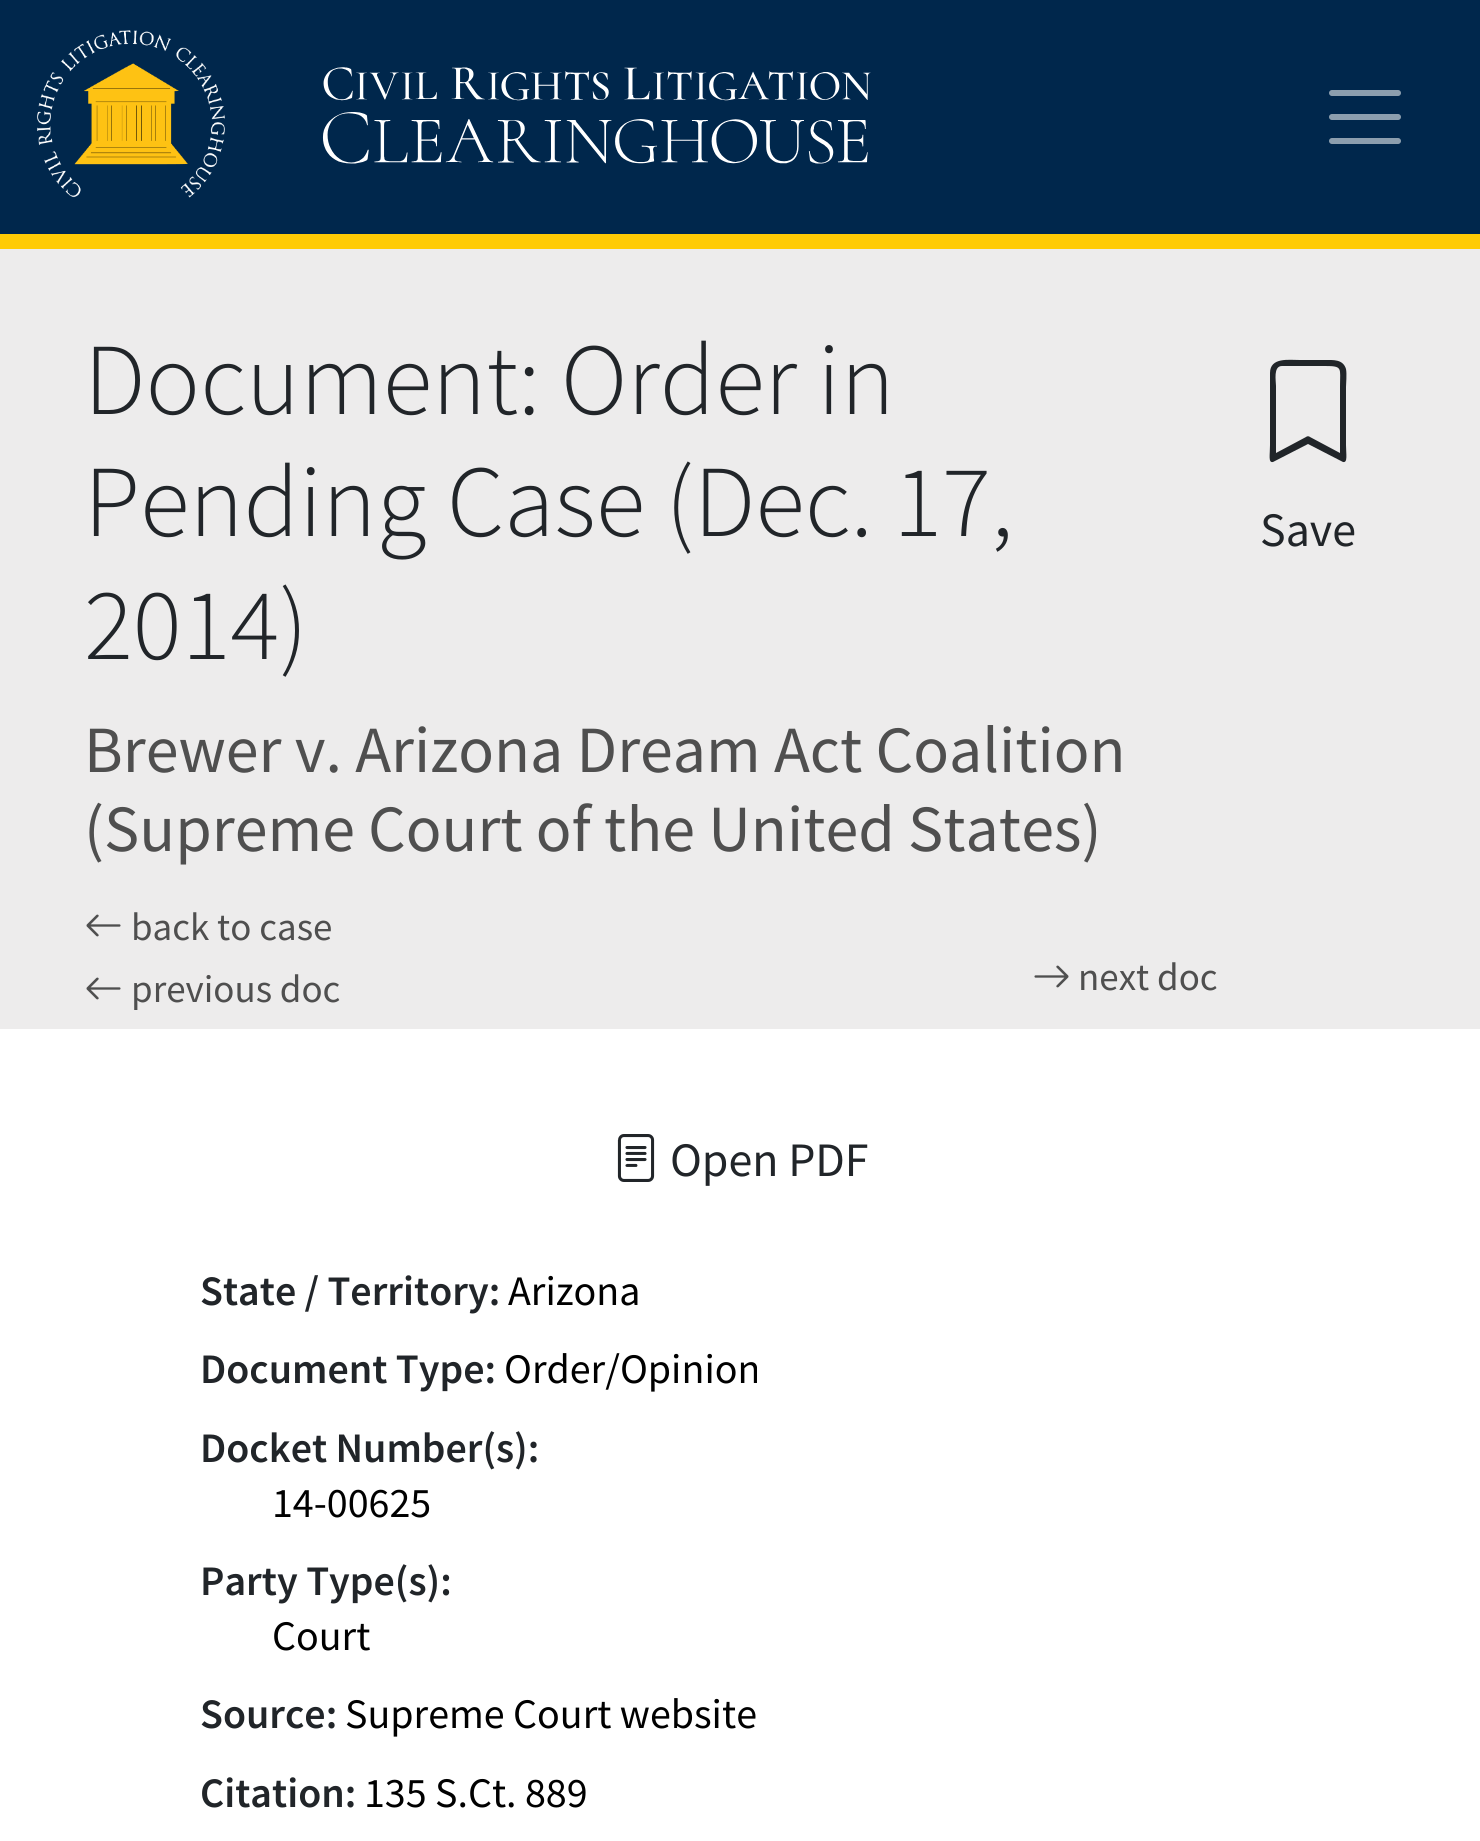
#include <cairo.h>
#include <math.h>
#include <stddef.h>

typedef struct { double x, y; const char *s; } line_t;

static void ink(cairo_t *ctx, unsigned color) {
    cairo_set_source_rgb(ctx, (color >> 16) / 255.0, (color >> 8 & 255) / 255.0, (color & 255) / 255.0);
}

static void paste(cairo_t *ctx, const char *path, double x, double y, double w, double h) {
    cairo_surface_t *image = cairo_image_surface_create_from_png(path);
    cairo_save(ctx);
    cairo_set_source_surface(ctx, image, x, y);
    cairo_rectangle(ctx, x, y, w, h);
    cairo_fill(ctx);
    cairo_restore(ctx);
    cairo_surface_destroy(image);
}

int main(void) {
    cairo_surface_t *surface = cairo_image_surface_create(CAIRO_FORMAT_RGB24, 1480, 1841);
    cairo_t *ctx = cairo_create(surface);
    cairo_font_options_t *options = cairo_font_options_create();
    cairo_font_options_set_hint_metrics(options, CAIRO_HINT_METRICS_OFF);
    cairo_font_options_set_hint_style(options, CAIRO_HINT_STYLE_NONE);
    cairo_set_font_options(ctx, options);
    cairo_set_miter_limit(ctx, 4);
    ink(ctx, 0xEDECEC);
    cairo_paint(ctx);
    ink(ctx, 0x00274C);
    cairo_rectangle(ctx, 0, 0, 1480, 234);
    cairo_fill(ctx);
    ink(ctx, 0xFFCB05);
    cairo_rectangle(ctx, 0, 234, 1480, 15);
    cairo_fill(ctx);
    paste(ctx, "media/1.png", 36, 30, 189, 168);
    paste(ctx, "media/2.png", 322, 67, 549, 97);
    cairo_new_path(ctx);
    cairo_move_to(ctx, 1332, 93);
    cairo_line_to(ctx, 1398, 93);
    cairo_move_to(ctx, 1332, 117);
    cairo_line_to(ctx, 1398, 117);
    cairo_move_to(ctx, 1332, 141);
    cairo_line_to(ctx, 1398, 141);
    ink(ctx, 0x8C9EAE);
    cairo_set_line_width(ctx, 6);
    cairo_set_line_cap(ctx, CAIRO_LINE_CAP_ROUND);
    cairo_stroke(ctx);
    cairo_select_font_face(ctx, "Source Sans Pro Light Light", CAIRO_FONT_SLANT_NORMAL, CAIRO_FONT_WEIGHT_NORMAL);
    cairo_set_font_size(ctx, 102);
    ink(ctx, 0x212529);
    {
        static const line_t items[] = {
            {84, 414, "Document: Order in"},
            {84, 536, "Pending Case (Dec. 17,"},
            {84, 659, "2014)"},
        };
        for (size_t i = 0; i < sizeof items / sizeof *items; i++) {
            cairo_move_to(ctx, items[i].x, items[i].y);
            cairo_show_text(ctx, items[i].s);
        }
    }
    cairo_select_font_face(ctx, "Source Sans Pro", CAIRO_FONT_SLANT_NORMAL, CAIRO_FONT_WEIGHT_NORMAL);
    cairo_set_font_size(ctx, 66);
    ink(ctx, 0x4F4F4F);
    cairo_move_to(ctx, 84, 772);
    cairo_show_text(ctx, "Brewer v. Arizona Dream Act Coalition");
    cairo_move_to(ctx, 84, 851);
    cairo_show_text(ctx, "(Supreme Court of the United States)");
    paste(ctx, "media/3.png", 86, 914, 35, 23);
    cairo_set_font_size(ctx, 39);
    cairo_move_to(ctx, 131, 940);
    cairo_show_text(ctx, "back to case");
    paste(ctx, "media/3.png", 86, 977, 35, 23);
    cairo_move_to(ctx, 131, 1002);
    cairo_show_text(ctx, "previous doc");
    paste(ctx, "media/4.png", 1034, 965, 35, 23);
    cairo_move_to(ctx, 1078, 990);
    cairo_show_text(ctx, "next doc");
    ink(ctx, 0x212529);
    cairo_new_path(ctx);
    cairo_move_to(ctx, 1270, 373);
    cairo_curve_to(ctx, 1270, 357, 1289, 360, 1300, 360);
    cairo_line_to(ctx, 1325, 360);
    cairo_curve_to(ctx, 1333, 360, 1343, 359, 1346, 369);
    cairo_curve_to(ctx, 1347, 374, 1346, 384, 1346, 387);
    cairo_line_to(ctx, 1346, 445);
    cairo_curve_to(ctx, 1346, 454, 1348, 463, 1343, 462);
    cairo_line_to(ctx, 1308, 444);
    cairo_line_to(ctx, 1273, 462);
    cairo_curve_to(ctx, 1268, 463, 1270, 455, 1270, 445);
    cairo_close_path(ctx);
    cairo_move_to(ctx, 1282, 366);
    cairo_curve_to(ctx, 1273, 366, 1276, 381, 1276, 386);
    cairo_line_to(ctx, 1276, 453);
    cairo_line_to(ctx, 1306, 437);
    cairo_curve_to(ctx, 1307, 436, 1309, 436, 1310, 437);
    cairo_line_to(ctx, 1340, 453);
    cairo_line_to(ctx, 1340, 386);
    cairo_curve_to(ctx, 1340, 368, 1343, 366, 1325, 366);
    cairo_close_path(ctx);
    cairo_fill(ctx);
    cairo_set_font_size(ctx, 48);
    cairo_move_to(ctx, 1260, 546);
    cairo_show_text(ctx, "Save");
    ink(ctx, 0xFFFFFF);
    cairo_rectangle(ctx, 0, 1029, 1480, 812);
    cairo_fill(ctx);
    paste(ctx, "media/5.png", 617, 1134, 38, 48);
    ink(ctx, 0x212529);
    cairo_move_to(ctx, 670, 1176);
    cairo_show_text(ctx, "Open PDF");
    cairo_select_font_face(ctx, "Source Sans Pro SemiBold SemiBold", CAIRO_FONT_SLANT_NORMAL, CAIRO_FONT_WEIGHT_NORMAL);
    cairo_set_font_size(ctx, 42);
    cairo_move_to(ctx, 200, 1305);
    cairo_show_text(ctx, "State / Territory:");
    cairo_select_font_face(ctx, "Source Sans Pro", CAIRO_FONT_SLANT_NORMAL, CAIRO_FONT_WEIGHT_NORMAL);
    ink(ctx, 0x000000);
    cairo_move_to(ctx, 508, 1305);
    cairo_show_text(ctx, "Arizona");
    cairo_select_font_face(ctx, "Source Sans Pro SemiBold SemiBold", CAIRO_FONT_SLANT_NORMAL, CAIRO_FONT_WEIGHT_NORMAL);
    ink(ctx, 0x212529);
    cairo_move_to(ctx, 200, 1383);
    cairo_show_text(ctx, "Document Type:");
    cairo_select_font_face(ctx, "Source Sans Pro", CAIRO_FONT_SLANT_NORMAL, CAIRO_FONT_WEIGHT_NORMAL);
    ink(ctx, 0x000000);
    cairo_move_to(ctx, 504, 1383);
    cairo_show_text(ctx, "Order/Opinion");
    cairo_select_font_face(ctx, "Source Sans Pro SemiBold SemiBold", CAIRO_FONT_SLANT_NORMAL, CAIRO_FONT_WEIGHT_NORMAL);
    ink(ctx, 0x212529);
    cairo_move_to(ctx, 200, 1462);
    cairo_show_text(ctx, "Docket Number(s):");
    cairo_select_font_face(ctx, "Source Sans Pro", CAIRO_FONT_SLANT_NORMAL, CAIRO_FONT_WEIGHT_NORMAL);
    ink(ctx, 0x000000);
    cairo_move_to(ctx, 272, 1517);
    cairo_show_text(ctx, "14-00625");
    cairo_select_font_face(ctx, "Source Sans Pro SemiBold SemiBold", CAIRO_FONT_SLANT_NORMAL, CAIRO_FONT_WEIGHT_NORMAL);
    ink(ctx, 0x212529);
    cairo_move_to(ctx, 200, 1595);
    cairo_show_text(ctx, "Party Type(s):");
    cairo_select_font_face(ctx, "Source Sans Pro", CAIRO_FONT_SLANT_NORMAL, CAIRO_FONT_WEIGHT_NORMAL);
    ink(ctx, 0x000000);
    cairo_move_to(ctx, 272, 1650);
    cairo_show_text(ctx, "Court");
    cairo_select_font_face(ctx, "Source Sans Pro SemiBold SemiBold", CAIRO_FONT_SLANT_NORMAL, CAIRO_FONT_WEIGHT_NORMAL);
    ink(ctx, 0x212529);
    cairo_move_to(ctx, 200, 1728);
    cairo_show_text(ctx, "Source:");
    cairo_select_font_face(ctx, "Source Sans Pro", CAIRO_FONT_SLANT_NORMAL, CAIRO_FONT_WEIGHT_NORMAL);
    ink(ctx, 0x000000);
    cairo_move_to(ctx, 345, 1728);
    cairo_show_text(ctx, "Supreme Court website");
    cairo_select_font_face(ctx, "Source Sans Pro SemiBold SemiBold", CAIRO_FONT_SLANT_NORMAL, CAIRO_FONT_WEIGHT_NORMAL);
    ink(ctx, 0x212529);
    cairo_move_to(ctx, 200, 1807);
    cairo_show_text(ctx, "Citation:");
    cairo_select_font_face(ctx, "Source Sans Pro", CAIRO_FONT_SLANT_NORMAL, CAIRO_FONT_WEIGHT_NORMAL);
    ink(ctx, 0x000000);
    cairo_move_to(ctx, 364, 1807);
    cairo_show_text(ctx, "135 S.Ct. 889");
    cairo_surface_write_to_png(surface, "image.png");
    cairo_font_options_destroy(options);
    cairo_destroy(ctx);
    cairo_surface_destroy(surface);
    return 0;
}
